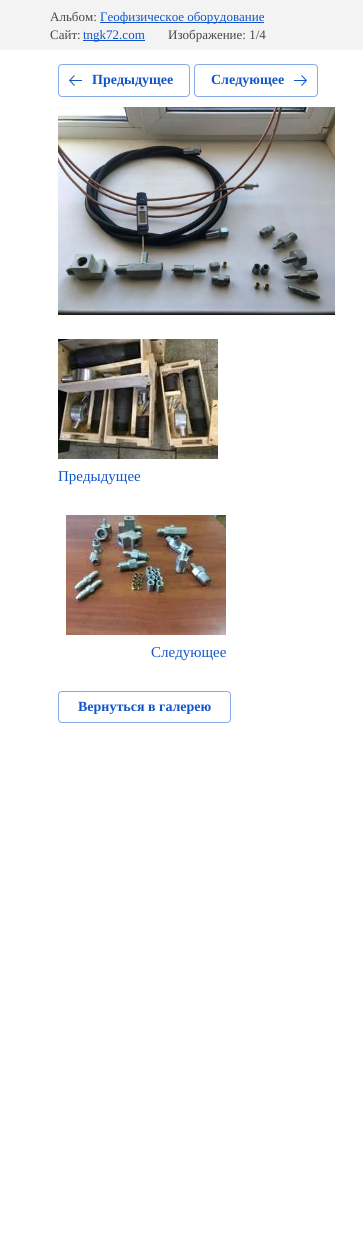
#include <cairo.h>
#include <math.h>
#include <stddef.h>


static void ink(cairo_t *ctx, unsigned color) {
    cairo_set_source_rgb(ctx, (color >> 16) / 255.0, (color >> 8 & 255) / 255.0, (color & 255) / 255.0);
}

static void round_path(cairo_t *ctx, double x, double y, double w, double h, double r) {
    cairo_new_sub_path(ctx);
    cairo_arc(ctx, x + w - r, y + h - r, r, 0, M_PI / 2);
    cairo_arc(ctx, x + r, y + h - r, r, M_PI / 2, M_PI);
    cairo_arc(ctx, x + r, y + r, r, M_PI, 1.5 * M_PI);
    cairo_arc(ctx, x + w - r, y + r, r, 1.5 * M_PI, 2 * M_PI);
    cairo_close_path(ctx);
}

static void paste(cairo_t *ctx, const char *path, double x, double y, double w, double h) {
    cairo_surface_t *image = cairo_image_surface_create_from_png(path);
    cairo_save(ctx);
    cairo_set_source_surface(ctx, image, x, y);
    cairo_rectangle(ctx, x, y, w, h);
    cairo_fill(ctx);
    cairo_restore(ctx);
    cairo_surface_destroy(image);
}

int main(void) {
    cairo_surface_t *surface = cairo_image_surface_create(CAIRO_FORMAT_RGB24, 363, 1238);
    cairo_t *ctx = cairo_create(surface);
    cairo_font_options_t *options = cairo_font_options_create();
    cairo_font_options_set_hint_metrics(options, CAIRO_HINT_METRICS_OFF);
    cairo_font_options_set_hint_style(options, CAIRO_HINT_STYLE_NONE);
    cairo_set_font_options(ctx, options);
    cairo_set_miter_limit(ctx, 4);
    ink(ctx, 0xFFFFFF);
    cairo_paint(ctx);
    ink(ctx, 0xF3F3F3);
    cairo_rectangle(ctx, 0, 0, 363, 50);
    cairo_fill(ctx);
    cairo_select_font_face(ctx, "Liberation Serif", CAIRO_FONT_SLANT_NORMAL, CAIRO_FONT_WEIGHT_NORMAL);
    cairo_set_font_size(ctx, 13);
    ink(ctx, 0x484848);
    cairo_move_to(ctx, 50, 21);
    cairo_show_text(ctx, "Альбом:");
    ink(ctx, 0x1155CC);
    cairo_rectangle(ctx, 100, 22, 164, 1);
    cairo_fill(ctx);
    cairo_move_to(ctx, 100, 21);
    cairo_show_text(ctx, "Геофизическое оборудование");
    ink(ctx, 0x484848);
    cairo_move_to(ctx, 50, 39);
    cairo_show_text(ctx, "Сайт:");
    ink(ctx, 0x1155CC);
    cairo_rectangle(ctx, 83, 40, 62, 1);
    cairo_fill(ctx);
    cairo_move_to(ctx, 83, 39);
    cairo_show_text(ctx, "tngk72.com");
    ink(ctx, 0x484848);
    cairo_move_to(ctx, 168, 39);
    cairo_show_text(ctx, "Изображение: 1/4");
    round_path(ctx, 58.5, 64.5, 131, 32, 3.5);
    ink(ctx, 0x88AAE6);
    cairo_set_line_width(ctx, 1);
    cairo_stroke(ctx);
    paste(ctx, "media/1.png", 69, 75, 13, 11);
    cairo_select_font_face(ctx, "Liberation Serif", CAIRO_FONT_SLANT_NORMAL, CAIRO_FONT_WEIGHT_BOLD);
    cairo_set_font_size(ctx, 14);
    ink(ctx, 0x1155CC);
    cairo_move_to(ctx, 92, 84);
    cairo_show_text(ctx, "Предыдущее");
    round_path(ctx, 194.5, 64.5, 123, 32, 3.5);
    ink(ctx, 0x88AAE6);
    cairo_stroke(ctx);
    ink(ctx, 0x1155CC);
    cairo_move_to(ctx, 211, 84);
    cairo_show_text(ctx, "Следующее");
    paste(ctx, "media/2.png", 294, 75, 13, 11);
    paste(ctx, "media/3.png", 58, 107, 277, 208);
    paste(ctx, "media/4.png", 58, 339, 160, 120);
    cairo_select_font_face(ctx, "Liberation Serif", CAIRO_FONT_SLANT_NORMAL, CAIRO_FONT_WEIGHT_NORMAL);
    cairo_set_font_size(ctx, 15);
    cairo_move_to(ctx, 58, 481);
    cairo_show_text(ctx, "Предыдущее");
    paste(ctx, "media/5.png", 66, 515, 160, 120);
    cairo_move_to(ctx, 151, 657);
    cairo_show_text(ctx, "Следующее");
    round_path(ctx, 58.5, 691.5, 172, 31, 3.5);
    ink(ctx, 0x88AAE6);
    cairo_stroke(ctx);
    cairo_select_font_face(ctx, "Liberation Serif", CAIRO_FONT_SLANT_NORMAL, CAIRO_FONT_WEIGHT_BOLD);
    cairo_set_font_size(ctx, 14);
    ink(ctx, 0x1155CC);
    cairo_move_to(ctx, 78, 711);
    cairo_show_text(ctx, "Вернуться в галерею");
    cairo_surface_write_to_png(surface, "image.png");
    cairo_font_options_destroy(options);
    cairo_destroy(ctx);
    cairo_surface_destroy(surface);
    return 0;
}
